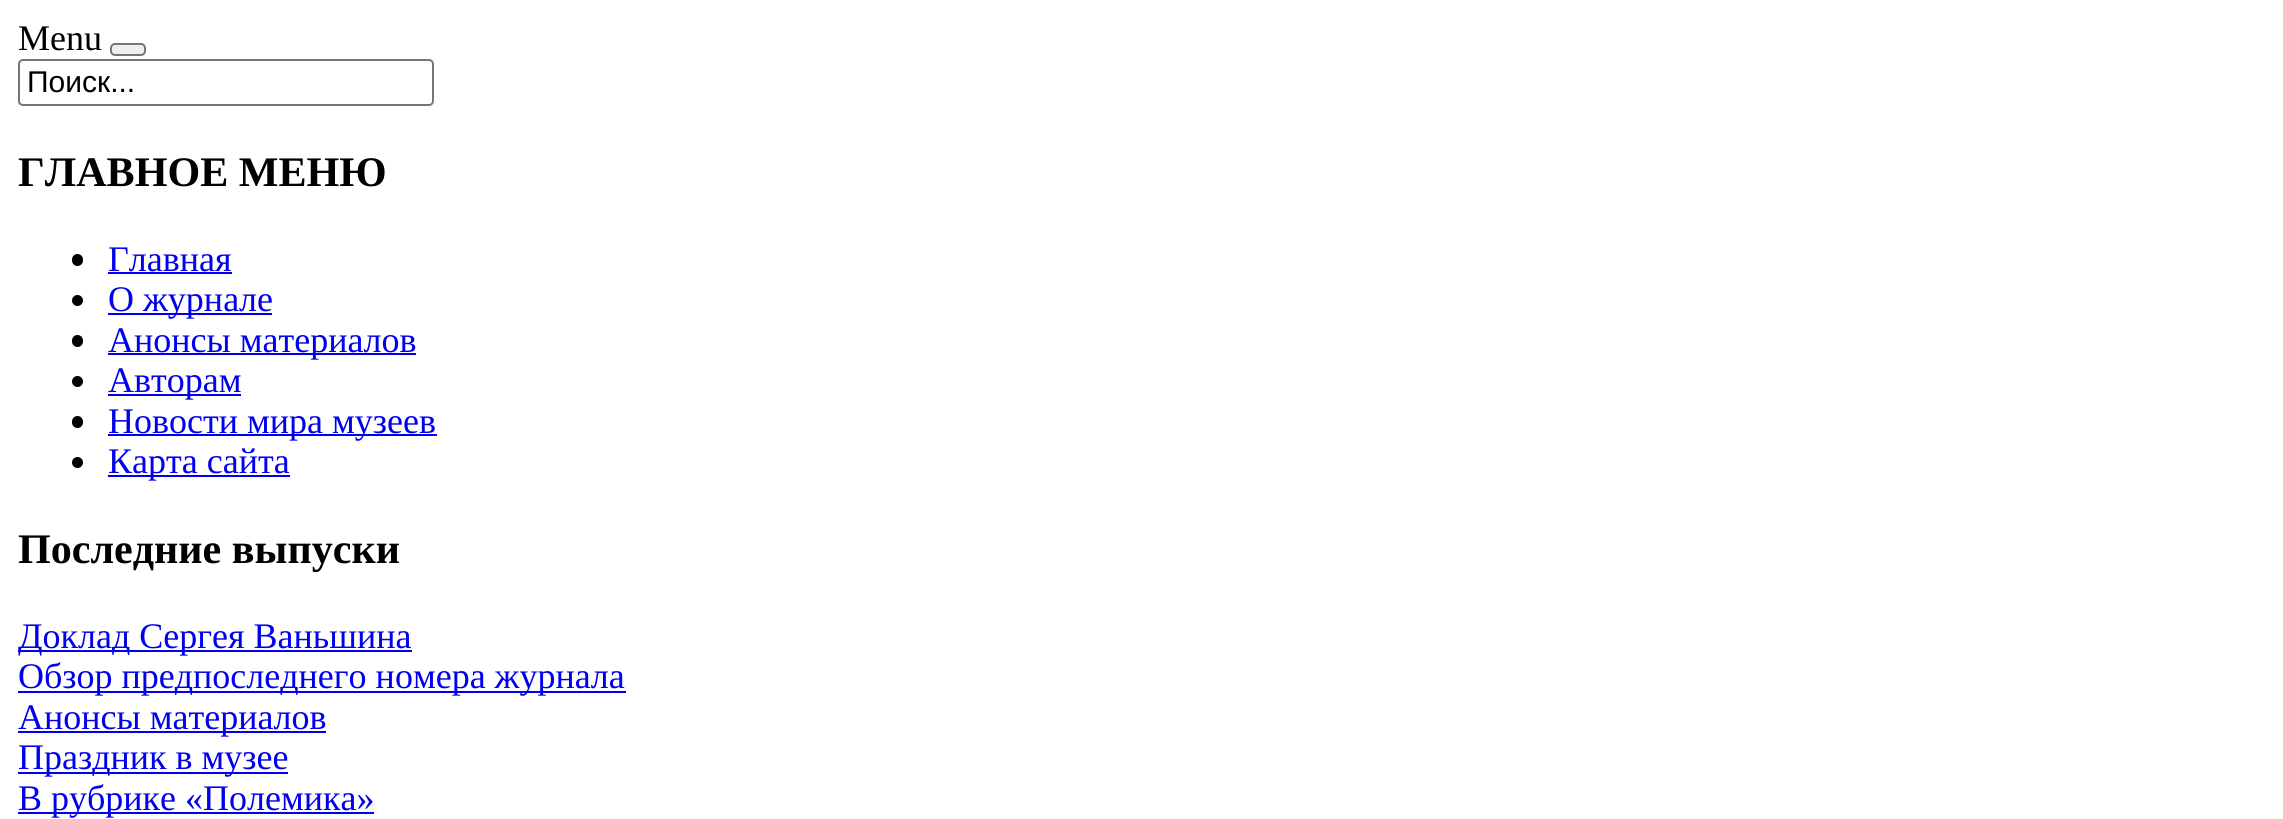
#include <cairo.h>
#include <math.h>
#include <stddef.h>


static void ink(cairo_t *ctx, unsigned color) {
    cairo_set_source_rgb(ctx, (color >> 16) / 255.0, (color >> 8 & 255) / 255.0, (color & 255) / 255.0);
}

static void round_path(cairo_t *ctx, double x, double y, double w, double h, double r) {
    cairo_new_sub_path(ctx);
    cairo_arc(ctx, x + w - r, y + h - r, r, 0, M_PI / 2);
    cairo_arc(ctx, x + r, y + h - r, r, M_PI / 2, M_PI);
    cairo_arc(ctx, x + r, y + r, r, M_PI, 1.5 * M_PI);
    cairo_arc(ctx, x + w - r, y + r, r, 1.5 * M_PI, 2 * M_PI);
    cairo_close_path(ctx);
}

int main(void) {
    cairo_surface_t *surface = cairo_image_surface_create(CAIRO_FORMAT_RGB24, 2283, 819);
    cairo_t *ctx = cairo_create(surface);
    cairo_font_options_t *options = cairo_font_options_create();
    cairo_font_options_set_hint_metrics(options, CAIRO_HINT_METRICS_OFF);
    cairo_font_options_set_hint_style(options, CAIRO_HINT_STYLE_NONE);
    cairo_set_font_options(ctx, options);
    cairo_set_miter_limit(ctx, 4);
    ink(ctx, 0xFFFFFF);
    cairo_paint(ctx);
    cairo_select_font_face(ctx, "Liberation Serif", CAIRO_FONT_SLANT_NORMAL, CAIRO_FONT_WEIGHT_NORMAL);
    cairo_set_font_size(ctx, 36);
    ink(ctx, 0x000000);
    cairo_move_to(ctx, 18, 50);
    cairo_show_text(ctx, "Menu");
    ink(ctx, 0xEFEFEF);
    round_path(ctx, 111, 44, 34, 11, 4);
    cairo_fill_preserve(ctx);
    ink(ctx, 0x767676);
    cairo_stroke(ctx);
    round_path(ctx, 19, 60, 414, 45, 4);
    cairo_stroke(ctx);
    cairo_select_font_face(ctx, "Liberation Sans", CAIRO_FONT_SLANT_NORMAL, CAIRO_FONT_WEIGHT_NORMAL);
    cairo_set_font_size(ctx, 30);
    ink(ctx, 0x000000);
    cairo_move_to(ctx, 27, 92);
    cairo_show_text(ctx, "Поиск...");
    cairo_select_font_face(ctx, "Liberation Serif", CAIRO_FONT_SLANT_NORMAL, CAIRO_FONT_WEIGHT_BOLD);
    cairo_set_font_size(ctx, 42.1);
    cairo_move_to(ctx, 18, 186);
    cairo_show_text(ctx, "ГЛАВНОЕ МЕНЮ");
    round_path(ctx, 72, 254, 11, 12, 5.5);
    cairo_fill(ctx);
    cairo_select_font_face(ctx, "Liberation Serif", CAIRO_FONT_SLANT_NORMAL, CAIRO_FONT_WEIGHT_NORMAL);
    cairo_set_font_size(ctx, 36);
    ink(ctx, 0x0000EE);
    cairo_move_to(ctx, 108, 271);
    cairo_show_text(ctx, "Главная");
    cairo_rectangle(ctx, 108, 272, 124, 2);
    cairo_fill(ctx);
    ink(ctx, 0x000000);
    cairo_arc(ctx, 77.5, 300.5, 5.5, 0, 2 * M_PI);
    cairo_fill(ctx);
    ink(ctx, 0x0000EE);
    cairo_rectangle(ctx, 108, 313, 164, 2);
    cairo_fill(ctx);
    cairo_move_to(ctx, 108, 311);
    cairo_show_text(ctx, "О журнале");
    ink(ctx, 0x000000);
    round_path(ctx, 72, 335, 11, 12, 5.5);
    cairo_fill(ctx);
    ink(ctx, 0x0000EE);
    cairo_rectangle(ctx, 108, 353, 308, 2);
    cairo_fill(ctx);
    cairo_move_to(ctx, 108, 352);
    cairo_show_text(ctx, "Анонсы материалов");
    ink(ctx, 0x000000);
    cairo_new_path(ctx);
    cairo_arc(ctx, 77.5, 381.5, 5.5, 0, 2 * M_PI);
    cairo_fill(ctx);
    ink(ctx, 0x0000EE);
    cairo_rectangle(ctx, 108, 394, 133, 2);
    cairo_fill(ctx);
    cairo_move_to(ctx, 108, 392);
    cairo_show_text(ctx, "Авторам");
    ink(ctx, 0x000000);
    round_path(ctx, 72, 416, 11, 12, 5.5);
    cairo_fill(ctx);
    ink(ctx, 0x0000EE);
    cairo_rectangle(ctx, 108, 434, 329, 2);
    cairo_fill(ctx);
    cairo_move_to(ctx, 108, 433);
    cairo_show_text(ctx, "Новости мира музеев");
    ink(ctx, 0x000000);
    cairo_new_path(ctx);
    cairo_arc(ctx, 77.5, 462.5, 5.5, 0, 2 * M_PI);
    cairo_fill(ctx);
    ink(ctx, 0x0000EE);
    cairo_rectangle(ctx, 108, 475, 182, 2);
    cairo_fill(ctx);
    cairo_move_to(ctx, 108, 473);
    cairo_show_text(ctx, "Карта сайта");
    cairo_select_font_face(ctx, "Liberation Serif", CAIRO_FONT_SLANT_NORMAL, CAIRO_FONT_WEIGHT_BOLD);
    cairo_set_font_size(ctx, 42.1);
    ink(ctx, 0x000000);
    cairo_move_to(ctx, 18, 563);
    cairo_show_text(ctx, "Последние выпуски");
    ink(ctx, 0x0000EE);
    cairo_rectangle(ctx, 18, 650, 394, 2);
    cairo_fill(ctx);
    cairo_select_font_face(ctx, "Liberation Serif", CAIRO_FONT_SLANT_NORMAL, CAIRO_FONT_WEIGHT_NORMAL);
    cairo_set_font_size(ctx, 36);
    cairo_move_to(ctx, 18, 648);
    cairo_show_text(ctx, "Доклад Сергея Ваньшина");
    cairo_rectangle(ctx, 18, 691, 608, 2);
    cairo_fill(ctx);
    cairo_move_to(ctx, 18, 688);
    cairo_show_text(ctx, "Обзор предпоследнего номера журнала");
    cairo_rectangle(ctx, 18, 731, 308, 2);
    cairo_fill(ctx);
    cairo_move_to(ctx, 18, 729);
    cairo_show_text(ctx, "Анонсы материалов");
    cairo_rectangle(ctx, 18, 772, 270, 2);
    cairo_fill(ctx);
    cairo_move_to(ctx, 18, 769);
    cairo_show_text(ctx, "Праздник в музее");
    cairo_rectangle(ctx, 18, 812, 356, 2);
    cairo_fill(ctx);
    cairo_move_to(ctx, 18, 810);
    cairo_show_text(ctx, "В рубрике «Полемика»");
    cairo_surface_write_to_png(surface, "image.png");
    cairo_font_options_destroy(options);
    cairo_destroy(ctx);
    cairo_surface_destroy(surface);
    return 0;
}
